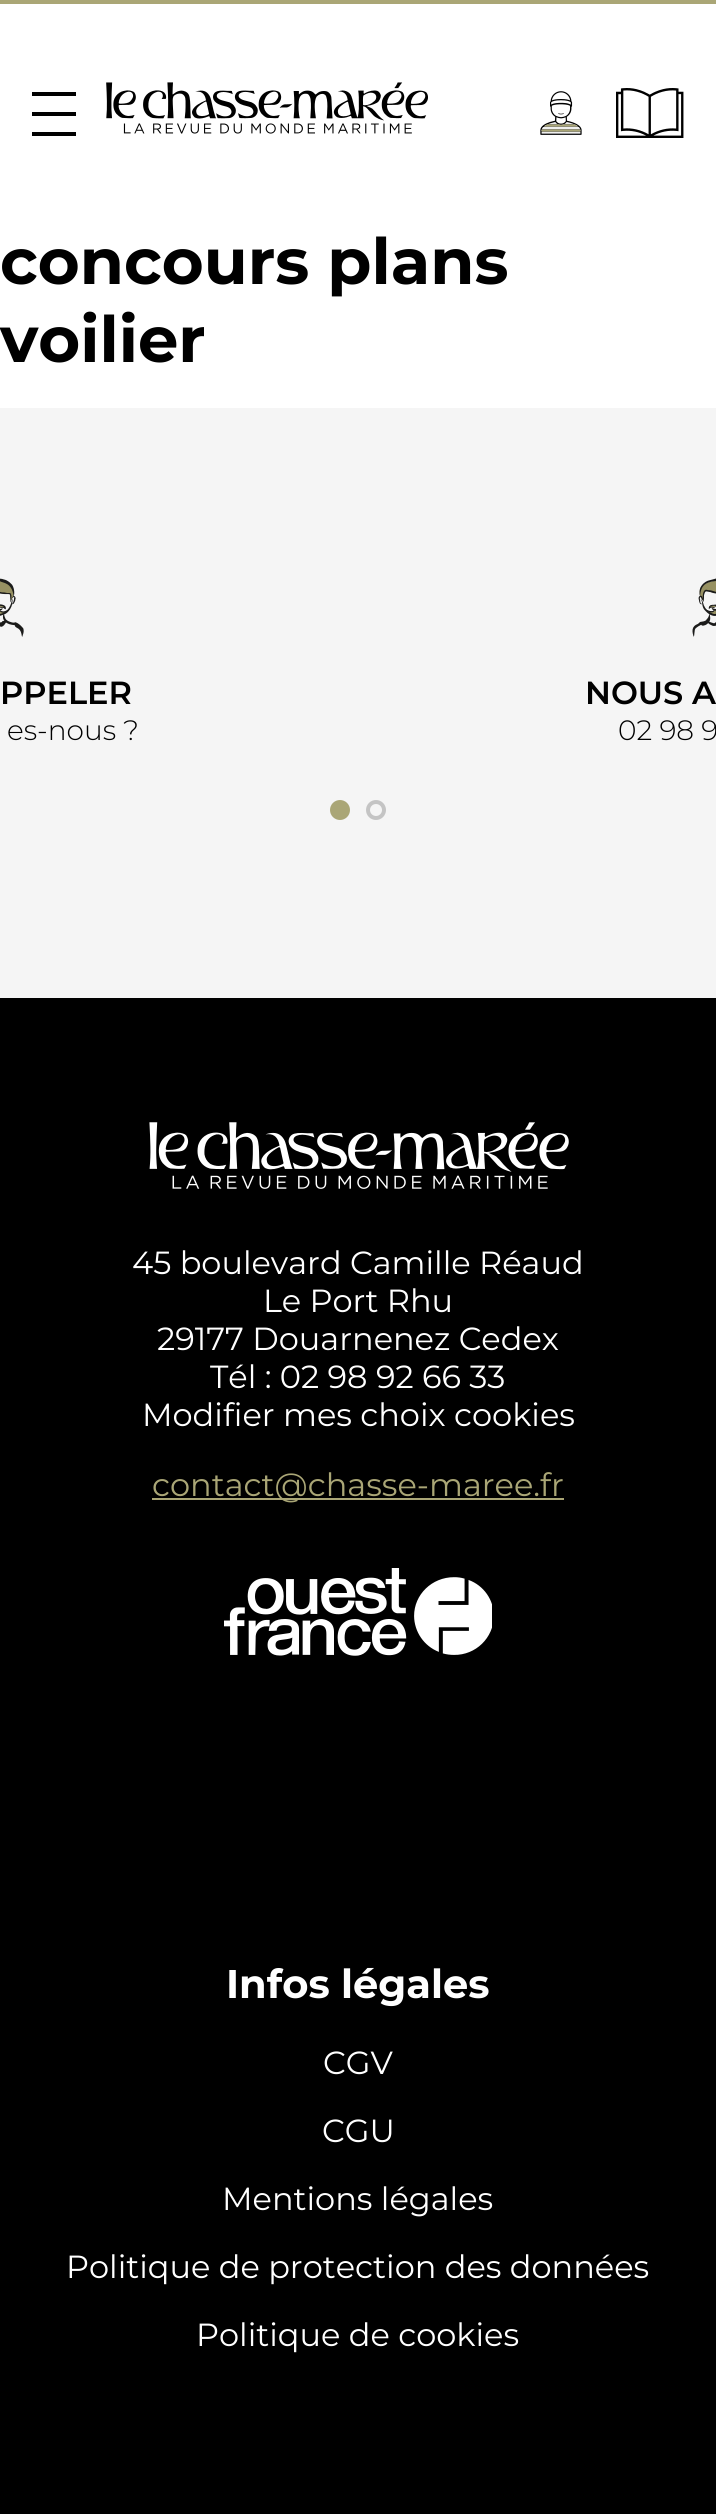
#include <cairo.h>
#include <math.h>
#include <stddef.h>

typedef struct { double x, y; const char *s; } line_t;
typedef struct { double x, y, w, h; unsigned color; } box_t;

static void ink(cairo_t *ctx, unsigned color) {
    cairo_set_source_rgb(ctx, (color >> 16) / 255.0, (color >> 8 & 255) / 255.0, (color & 255) / 255.0);
}

static void paste(cairo_t *ctx, const char *path, double x, double y, double w, double h) {
    cairo_surface_t *image = cairo_image_surface_create_from_png(path);
    cairo_save(ctx);
    cairo_set_source_surface(ctx, image, x, y);
    cairo_rectangle(ctx, x, y, w, h);
    cairo_fill(ctx);
    cairo_restore(ctx);
    cairo_surface_destroy(image);
}

int main(void) {
    cairo_surface_t *surface = cairo_image_surface_create(CAIRO_FORMAT_RGB24, 716, 2514);
    cairo_t *ctx = cairo_create(surface);
    cairo_font_options_t *options = cairo_font_options_create();
    cairo_font_options_set_hint_metrics(options, CAIRO_HINT_METRICS_OFF);
    cairo_font_options_set_hint_style(options, CAIRO_HINT_STYLE_NONE);
    cairo_set_font_options(ctx, options);
    cairo_set_miter_limit(ctx, 4);
    ink(ctx, 0xFFFFFF);
    cairo_paint(ctx);
    {
        static const box_t items[] = {
            {0, 0, 716, 4, 0xAAA676},
            {32, 112, 44, 4, 0x000000},
            {32, 92, 44, 4, 0x000000},
            {32, 132, 44, 4, 0x000000},
        };
        for (size_t i = 0; i < sizeof items / sizeof *items; i++) {
            ink(ctx, items[i].color);
            cairo_rectangle(ctx, items[i].x, items[i].y, items[i].w, items[i].h);
            cairo_fill(ctx);
        }
    }
    paste(ctx, "media/1.png", 106, 82, 322, 52);
    paste(ctx, "media/2.png", 540, 91, 42, 44);
    paste(ctx, "media/3.png", 616, 88, 68, 50);
    cairo_select_font_face(ctx, "Montserrat", CAIRO_FONT_SLANT_NORMAL, CAIRO_FONT_WEIGHT_BOLD);
    cairo_set_font_size(ctx, 64);
    cairo_move_to(ctx, 0, 284);
    cairo_show_text(ctx, "concours plans");
    cairo_move_to(ctx, 0, 362);
    cairo_show_text(ctx, "voilier");
    ink(ctx, 0xF5F5F5);
    cairo_rectangle(ctx, 0, 408, 716, 590);
    cairo_fill(ctx);
    paste(ctx, "media/4.png", 0, 578, 24, 59);
    cairo_select_font_face(ctx, "Montserrat SemiBold", CAIRO_FONT_SLANT_NORMAL, CAIRO_FONT_WEIGHT_NORMAL);
    cairo_set_font_size(ctx, 32);
    ink(ctx, 0x000000);
    cairo_move_to(ctx, 0, 704);
    cairo_show_text(ctx, "PPELER");
    cairo_select_font_face(ctx, "Montserrat Light", CAIRO_FONT_SLANT_NORMAL, CAIRO_FONT_WEIGHT_NORMAL);
    cairo_set_font_size(ctx, 28);
    cairo_move_to(ctx, 7, 740);
    cairo_show_text(ctx, "es-nous ?");
    paste(ctx, "media/5.png", 692, 578, 24, 59);
    cairo_select_font_face(ctx, "Montserrat SemiBold", CAIRO_FONT_SLANT_NORMAL, CAIRO_FONT_WEIGHT_NORMAL);
    cairo_set_font_size(ctx, 32);
    cairo_move_to(ctx, 585, 704);
    cairo_show_text(ctx, "NOUS A");
    cairo_select_font_face(ctx, "Montserrat Light", CAIRO_FONT_SLANT_NORMAL, CAIRO_FONT_WEIGHT_NORMAL);
    cairo_set_font_size(ctx, 28);
    cairo_move_to(ctx, 618, 740);
    cairo_show_text(ctx, "02 98 9");
    ink(ctx, 0xAAA676);
    cairo_new_path(ctx);
    cairo_arc(ctx, 340, 810, 10, 0, 2 * M_PI);
    cairo_fill(ctx);
    cairo_arc(ctx, 376, 810, 8, 0, 2 * M_PI);
    ink(ctx, 0xC4C4C4);
    cairo_set_line_width(ctx, 4);
    cairo_stroke(ctx);
    ink(ctx, 0x000000);
    cairo_rectangle(ctx, 0, 998, 716, 1516);
    cairo_fill(ctx);
    paste(ctx, "media/6.png", 149, 1122, 420, 67);
    cairo_select_font_face(ctx, "Montserrat", CAIRO_FONT_SLANT_NORMAL, CAIRO_FONT_WEIGHT_NORMAL);
    cairo_set_font_size(ctx, 32);
    ink(ctx, 0xFFFFFF);
    {
        static const line_t items[] = {
            {132, 1274, "45 boulevard Camille Réaud"},
            {263, 1312, "Le Port Rhu"},
            {157, 1350, "29177 Douarnenez Cedex"},
            {210, 1388, "Tél : 02 98 92 66 33"},
            {142, 1426, "Modifier mes choix cookies"},
        };
        for (size_t i = 0; i < sizeof items / sizeof *items; i++) {
            cairo_move_to(ctx, items[i].x, items[i].y);
            cairo_show_text(ctx, items[i].s);
        }
    }
    ink(ctx, 0xAAA676);
    cairo_rectangle(ctx, 152, 1498, 412, 2);
    cairo_fill(ctx);
    cairo_move_to(ctx, 152, 1496);
    cairo_show_text(ctx, "contact@chasse-maree.fr");
    paste(ctx, "media/7.png", 224, 1568, 268, 88);
    cairo_select_font_face(ctx, "Montserrat", CAIRO_FONT_SLANT_NORMAL, CAIRO_FONT_WEIGHT_BOLD);
    cairo_set_font_size(ctx, 40);
    ink(ctx, 0xFFFFFF);
    cairo_move_to(ctx, 226, 1998);
    cairo_show_text(ctx, "Infos légales");
    cairo_select_font_face(ctx, "Montserrat", CAIRO_FONT_SLANT_NORMAL, CAIRO_FONT_WEIGHT_NORMAL);
    cairo_set_font_size(ctx, 32);
    {
        static const line_t items[] = {
            {323, 2074, "CGV"},
            {322, 2142, "CGU"},
            {222, 2210, "Mentions légales"},
            {66, 2278, "Politique de protection des données"},
            {196, 2346, "Politique de cookies"},
        };
        for (size_t i = 0; i < sizeof items / sizeof *items; i++) {
            cairo_move_to(ctx, items[i].x, items[i].y);
            cairo_show_text(ctx, items[i].s);
        }
    }
    cairo_surface_write_to_png(surface, "image.png");
    cairo_font_options_destroy(options);
    cairo_destroy(ctx);
    cairo_surface_destroy(surface);
    return 0;
}
